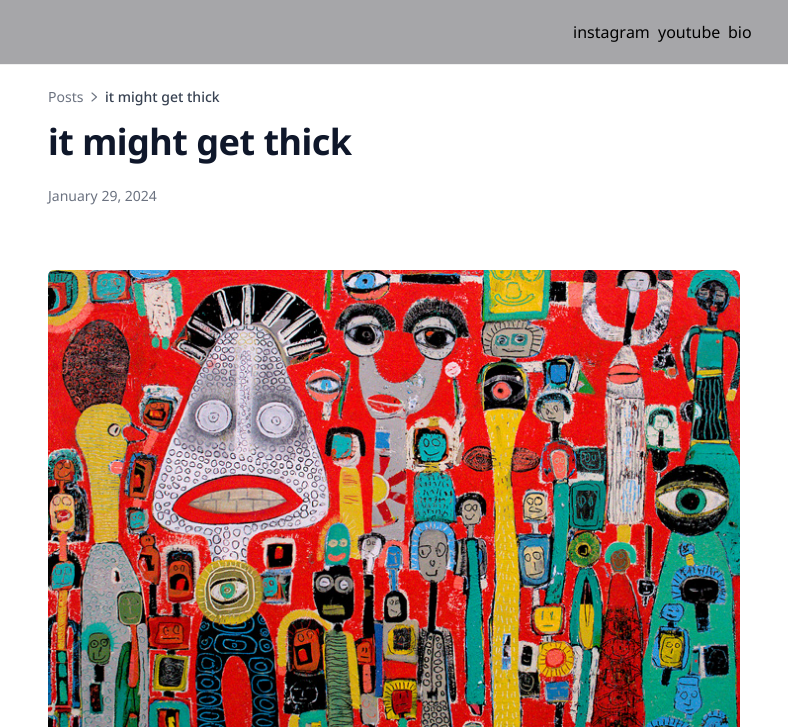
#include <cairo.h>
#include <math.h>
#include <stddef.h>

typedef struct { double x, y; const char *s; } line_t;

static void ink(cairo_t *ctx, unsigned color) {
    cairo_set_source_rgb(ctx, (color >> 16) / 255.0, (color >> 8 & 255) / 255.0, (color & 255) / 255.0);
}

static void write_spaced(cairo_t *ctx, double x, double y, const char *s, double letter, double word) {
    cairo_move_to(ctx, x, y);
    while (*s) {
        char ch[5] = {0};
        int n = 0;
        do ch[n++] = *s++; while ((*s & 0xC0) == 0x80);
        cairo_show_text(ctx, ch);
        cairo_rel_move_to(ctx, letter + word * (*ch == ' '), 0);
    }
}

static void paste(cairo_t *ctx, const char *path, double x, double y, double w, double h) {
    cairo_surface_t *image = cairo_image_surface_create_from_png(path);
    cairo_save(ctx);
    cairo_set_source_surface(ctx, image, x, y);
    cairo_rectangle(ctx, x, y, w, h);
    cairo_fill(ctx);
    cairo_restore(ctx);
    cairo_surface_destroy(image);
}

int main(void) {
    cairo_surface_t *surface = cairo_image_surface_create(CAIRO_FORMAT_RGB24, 788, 727);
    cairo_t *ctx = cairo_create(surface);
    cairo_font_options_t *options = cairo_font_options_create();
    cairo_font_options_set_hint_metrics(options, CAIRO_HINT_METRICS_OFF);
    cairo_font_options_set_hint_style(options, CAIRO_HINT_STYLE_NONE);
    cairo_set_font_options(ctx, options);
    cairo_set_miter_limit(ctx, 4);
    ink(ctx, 0xFFFFFF);
    cairo_paint(ctx);
    ink(ctx, 0xF0F0F0);
    cairo_rectangle(ctx, 0, 64, 788, 1);
    cairo_fill(ctx);
    ink(ctx, 0xA6A6A9);
    cairo_rectangle(ctx, 0, 0, 788, 64);
    cairo_fill(ctx);
    cairo_select_font_face(ctx, "Noto Sans", CAIRO_FONT_SLANT_NORMAL, CAIRO_FONT_WEIGHT_NORMAL);
    cairo_set_font_size(ctx, 16);
    ink(ctx, 0x000000);
    {
        static const line_t items[] = {
            {573, 38, "instagram"},
            {658, 38, "youtube"},
            {728, 38, "bio"},
        };
        for (size_t i = 0; i < sizeof items / sizeof *items; i++) {
            cairo_move_to(ctx, items[i].x, items[i].y);
            cairo_show_text(ctx, items[i].s);
        }
    }
    cairo_set_font_size(ctx, 14);
    ink(ctx, 0x6B7280);
    cairo_move_to(ctx, 48, 102);
    cairo_show_text(ctx, "Posts");
    cairo_new_path(ctx);
    cairo_move_to(ctx, 92, 93);
    cairo_line_to(ctx, 96.5, 97);
    cairo_line_to(ctx, 92, 101);
    cairo_set_line_width(ctx, 1.2);
    cairo_set_line_cap(ctx, CAIRO_LINE_CAP_ROUND);
    cairo_set_line_join(ctx, CAIRO_LINE_JOIN_ROUND);
    cairo_stroke(ctx);
    cairo_select_font_face(ctx, "Noto Sans Medium", CAIRO_FONT_SLANT_NORMAL, CAIRO_FONT_WEIGHT_NORMAL);
    ink(ctx, 0x374151);
    cairo_move_to(ctx, 105, 102);
    cairo_show_text(ctx, "it might get thick");
    cairo_select_font_face(ctx, "Noto Sans", CAIRO_FONT_SLANT_NORMAL, CAIRO_FONT_WEIGHT_BOLD);
    cairo_set_font_size(ctx, 36);
    ink(ctx, 0x0F172A);
    write_spaced(ctx, 48, 155, "it might get thick", -0.5, 0);
    cairo_select_font_face(ctx, "Noto Sans", CAIRO_FONT_SLANT_NORMAL, CAIRO_FONT_WEIGHT_NORMAL);
    cairo_set_font_size(ctx, 14);
    ink(ctx, 0x6B7280);
    cairo_move_to(ctx, 48, 201);
    cairo_show_text(ctx, "January 29, 2024");
    paste(ctx, "media/1.png", 48, 270, 692, 457);
    cairo_surface_write_to_png(surface, "image.png");
    cairo_font_options_destroy(options);
    cairo_destroy(ctx);
    cairo_surface_destroy(surface);
    return 0;
}
